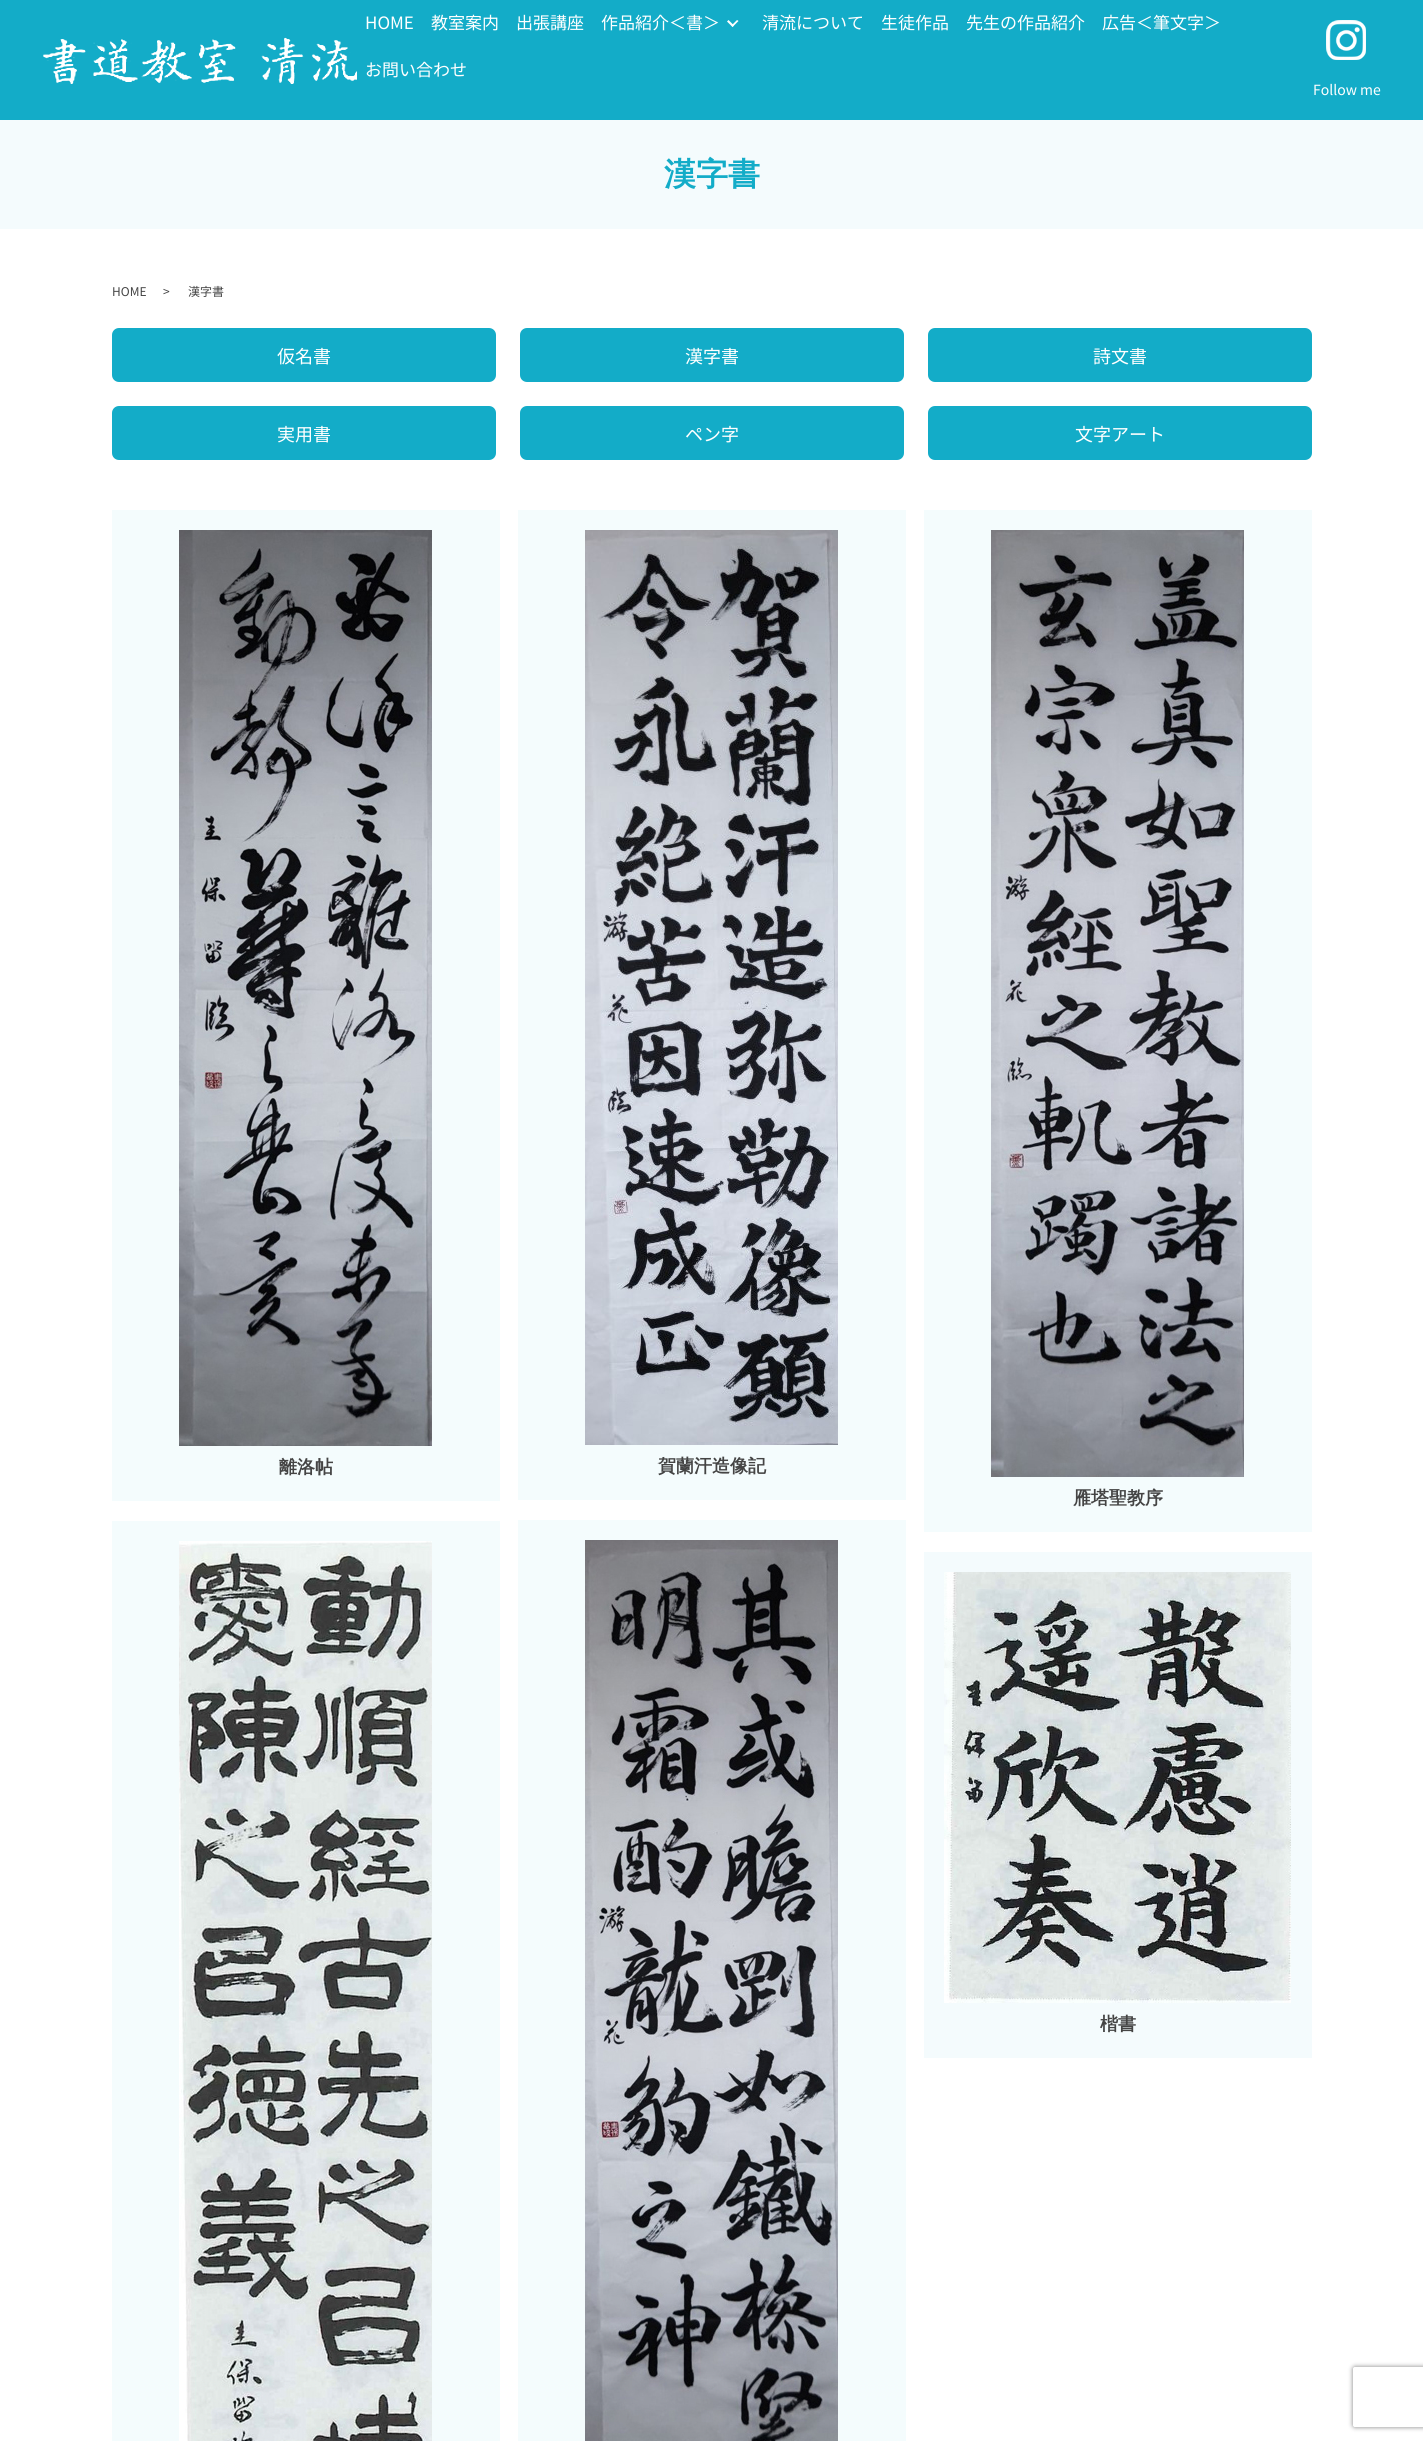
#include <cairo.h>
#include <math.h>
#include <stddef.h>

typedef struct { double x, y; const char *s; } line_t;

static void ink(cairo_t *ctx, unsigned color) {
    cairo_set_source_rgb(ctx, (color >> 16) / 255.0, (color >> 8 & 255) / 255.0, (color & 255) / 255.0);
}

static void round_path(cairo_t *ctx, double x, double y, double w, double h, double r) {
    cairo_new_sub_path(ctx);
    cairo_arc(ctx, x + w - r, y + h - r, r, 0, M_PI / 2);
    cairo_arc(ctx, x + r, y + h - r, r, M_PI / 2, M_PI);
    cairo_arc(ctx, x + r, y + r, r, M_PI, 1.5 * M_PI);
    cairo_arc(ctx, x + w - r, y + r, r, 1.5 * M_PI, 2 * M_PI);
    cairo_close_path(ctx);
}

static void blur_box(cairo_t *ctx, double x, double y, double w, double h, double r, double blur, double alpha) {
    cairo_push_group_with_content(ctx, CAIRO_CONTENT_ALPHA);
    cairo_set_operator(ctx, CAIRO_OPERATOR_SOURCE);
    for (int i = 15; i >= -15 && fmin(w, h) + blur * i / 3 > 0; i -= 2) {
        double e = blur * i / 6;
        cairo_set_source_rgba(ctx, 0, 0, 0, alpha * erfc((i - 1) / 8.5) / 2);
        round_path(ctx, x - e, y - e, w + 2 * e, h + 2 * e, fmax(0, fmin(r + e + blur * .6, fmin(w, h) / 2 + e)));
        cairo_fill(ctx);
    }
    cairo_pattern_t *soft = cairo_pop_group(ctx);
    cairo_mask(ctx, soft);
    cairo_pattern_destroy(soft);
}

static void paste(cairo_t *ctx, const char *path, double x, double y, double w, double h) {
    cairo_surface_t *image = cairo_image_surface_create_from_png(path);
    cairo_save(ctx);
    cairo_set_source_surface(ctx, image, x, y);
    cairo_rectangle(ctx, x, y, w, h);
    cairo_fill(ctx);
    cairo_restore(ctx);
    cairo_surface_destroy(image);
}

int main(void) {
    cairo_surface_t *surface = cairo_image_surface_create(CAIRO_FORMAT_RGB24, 1423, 2441);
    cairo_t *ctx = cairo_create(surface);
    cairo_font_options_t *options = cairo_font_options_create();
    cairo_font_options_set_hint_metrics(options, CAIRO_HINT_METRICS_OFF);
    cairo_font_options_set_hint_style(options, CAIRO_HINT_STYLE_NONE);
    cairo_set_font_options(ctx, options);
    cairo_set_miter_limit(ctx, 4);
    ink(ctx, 0xFFFFFF);
    cairo_paint(ctx);
    ink(ctx, 0x13ACC8);
    cairo_rectangle(ctx, 0, 0, 1423, 120);
    cairo_fill(ctx);
    paste(ctx, "media/1.png", 43, 37, 314, 47);
    cairo_select_font_face(ctx, "Noto Sans JP", CAIRO_FONT_SLANT_NORMAL, CAIRO_FONT_WEIGHT_NORMAL);
    cairo_set_font_size(ctx, 17);
    ink(ctx, 0xFFFFFF);
    {
        static const line_t items[] = {
            {365, 29, "HOME"},
            {431, 29, "教室案内"},
            {516, 29, "出張講座"},
            {601, 29, "作品紹介＜書＞"},
        };
        for (size_t i = 0; i < sizeof items / sizeof *items; i++) {
            cairo_move_to(ctx, items[i].x, items[i].y);
            cairo_show_text(ctx, items[i].s);
        }
    }
    cairo_new_path(ctx);
    cairo_move_to(ctx, 738.5, 21);
    cairo_line_to(ctx, 732.5, 27);
    cairo_line_to(ctx, 731.5, 25.5);
    cairo_line_to(ctx, 737, 20);
    cairo_close_path(ctx);
    cairo_fill(ctx);
    cairo_new_path(ctx);
    cairo_move_to(ctx, 734, 25.5);
    cairo_line_to(ctx, 732.5, 27);
    cairo_line_to(ctx, 727, 21.5);
    cairo_line_to(ctx, 728.5, 20);
    cairo_close_path(ctx);
    cairo_fill(ctx);
    {
        static const line_t items[] = {
            {762, 29, "清流について"},
            {881, 29, "生徒作品"},
            {966, 29, "先生の作品紹介"},
            {1102, 29, "広告＜筆文字＞"},
            {365, 76, "お問い合わせ"},
        };
        for (size_t i = 0; i < sizeof items / sizeof *items; i++) {
            cairo_move_to(ctx, items[i].x, items[i].y);
            cairo_show_text(ctx, items[i].s);
        }
    }
    paste(ctx, "media/2.png", 1326, 20, 40, 40);
    cairo_set_font_size(ctx, 14);
    cairo_move_to(ctx, 1313, 95);
    cairo_show_text(ctx, "Follow me");
    ink(ctx, 0xF4FBFD);
    cairo_rectangle(ctx, 0, 120, 1423, 109);
    cairo_fill(ctx);
    cairo_select_font_face(ctx, "WenQuanYi Zen Hei", CAIRO_FONT_SLANT_NORMAL, CAIRO_FONT_WEIGHT_BOLD);
    cairo_set_font_size(ctx, 32);
    ink(ctx, 0x13ACC8);
    cairo_move_to(ctx, 664, 185);
    cairo_show_text(ctx, "漢字書");
    cairo_select_font_face(ctx, "Noto Sans JP", CAIRO_FONT_SLANT_NORMAL, CAIRO_FONT_WEIGHT_NORMAL);
    cairo_set_font_size(ctx, 12);
    ink(ctx, 0x444444);
    {
        static const line_t items[] = {
            {112, 296, "HOME"},
            {163, 296, ">"},
            {188, 296, "漢字書"},
        };
        for (size_t i = 0; i < sizeof items / sizeof *items; i++) {
            cairo_move_to(ctx, items[i].x, items[i].y);
            cairo_show_text(ctx, items[i].s);
        }
    }
    ink(ctx, 0x13ACC8);
    round_path(ctx, 112, 328, 384, 54, 7);
    cairo_fill(ctx);
    cairo_set_font_size(ctx, 18);
    ink(ctx, 0xFFFFFF);
    cairo_move_to(ctx, 277, 363);
    cairo_show_text(ctx, "仮名書");
    ink(ctx, 0x13ACC8);
    round_path(ctx, 520, 328, 384, 54, 7);
    cairo_fill(ctx);
    ink(ctx, 0xFFFFFF);
    cairo_move_to(ctx, 685, 363);
    cairo_show_text(ctx, "漢字書");
    ink(ctx, 0x13ACC8);
    round_path(ctx, 928, 328, 384, 54, 7);
    cairo_fill(ctx);
    ink(ctx, 0xFFFFFF);
    cairo_move_to(ctx, 1093, 363);
    cairo_show_text(ctx, "詩文書");
    ink(ctx, 0x13ACC8);
    round_path(ctx, 112, 406, 384, 54, 7);
    cairo_fill(ctx);
    ink(ctx, 0xFFFFFF);
    cairo_move_to(ctx, 277, 441);
    cairo_show_text(ctx, "実用書");
    ink(ctx, 0x13ACC8);
    round_path(ctx, 520, 406, 384, 54, 7);
    cairo_fill(ctx);
    ink(ctx, 0xFFFFFF);
    cairo_move_to(ctx, 685, 441);
    cairo_show_text(ctx, "ペン字");
    ink(ctx, 0x13ACC8);
    round_path(ctx, 928, 406, 384, 54, 7);
    cairo_fill(ctx);
    ink(ctx, 0xFFFFFF);
    cairo_move_to(ctx, 1075, 441);
    cairo_show_text(ctx, "文字アート");
    ink(ctx, 0xF4FCFD);
    cairo_rectangle(ctx, 112, 510, 388, 991);
    cairo_fill(ctx);
    paste(ctx, "media/3.png", 179, 530, 253, 916);
    cairo_select_font_face(ctx, "WenQuanYi Zen Hei", CAIRO_FONT_SLANT_NORMAL, CAIRO_FONT_WEIGHT_BOLD);
    ink(ctx, 0x444444);
    cairo_move_to(ctx, 279, 1473);
    cairo_show_text(ctx, "離洛帖");
    ink(ctx, 0xF4FCFD);
    cairo_rectangle(ctx, 518, 510, 388, 990);
    cairo_fill(ctx);
    paste(ctx, "media/4.png", 585, 530, 253, 915);
    ink(ctx, 0x444444);
    cairo_move_to(ctx, 658, 1472);
    cairo_show_text(ctx, "賀蘭汗造像記");
    ink(ctx, 0xF4FCFD);
    cairo_rectangle(ctx, 924, 510, 388, 1022);
    cairo_fill(ctx);
    paste(ctx, "media/5.png", 991, 530, 253, 947);
    ink(ctx, 0x444444);
    cairo_move_to(ctx, 1073, 1504);
    cairo_show_text(ctx, "雁塔聖教序");
    ink(ctx, 0xF4FCFD);
    cairo_rectangle(ctx, 112, 1521, 388, 920);
    cairo_fill(ctx);
    paste(ctx, "media/6.png", 179, 1541, 253, 900);
    cairo_rectangle(ctx, 518, 1520, 388, 921);
    cairo_fill(ctx);
    paste(ctx, "media/7.png", 585, 1540, 253, 901);
    ink(ctx, 0xF4FBFD);
    cairo_rectangle(ctx, 924, 1552, 388, 506);
    cairo_fill(ctx);
    paste(ctx, "media/8.png", 944, 1572, 347, 431);
    ink(ctx, 0x444444);
    cairo_move_to(ctx, 1100, 2030);
    cairo_show_text(ctx, "楷書");
    cairo_save(ctx);
    cairo_set_fill_rule(ctx, CAIRO_FILL_RULE_EVEN_ODD);
    cairo_new_path(ctx);
    cairo_move_to(ctx, 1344, 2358);
    cairo_line_to(ctx, 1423, 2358);
    cairo_line_to(ctx, 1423, 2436);
    cairo_line_to(ctx, 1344, 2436);
    cairo_close_path(ctx);
    cairo_move_to(ctx, 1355, 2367);
    cairo_line_to(ctx, 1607, 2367);
    cairo_curve_to(ctx, 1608, 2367, 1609, 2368, 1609, 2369);
    cairo_line_to(ctx, 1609, 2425);
    cairo_curve_to(ctx, 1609, 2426, 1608, 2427, 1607, 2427);
    cairo_line_to(ctx, 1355, 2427);
    cairo_curve_to(ctx, 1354, 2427, 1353, 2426, 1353, 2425);
    cairo_line_to(ctx, 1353, 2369);
    cairo_curve_to(ctx, 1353, 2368, 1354, 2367, 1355, 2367);
    cairo_close_path(ctx);
    cairo_clip(ctx);
    ink(ctx, 0x808080);
    blur_box(ctx, 1353, 2367, 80, 60, 2, 2.5, 1);
    cairo_restore(ctx);
    cairo_surface_write_to_png(surface, "image.png");
    cairo_font_options_destroy(options);
    cairo_destroy(ctx);
    cairo_surface_destroy(surface);
    return 0;
}
